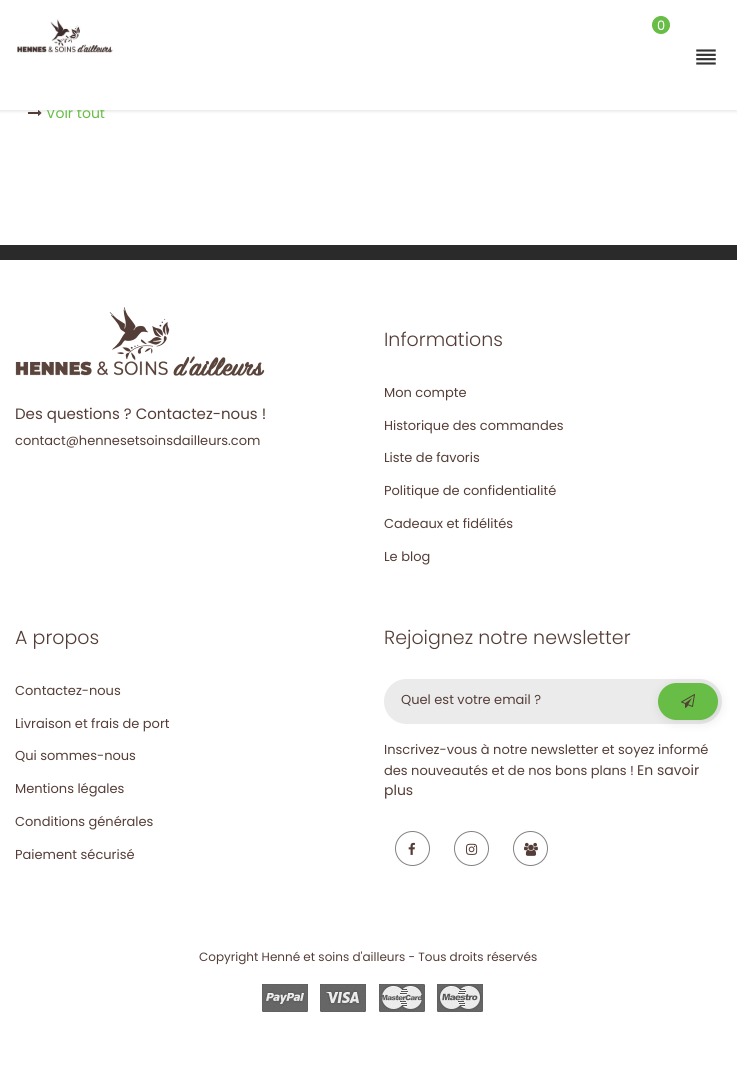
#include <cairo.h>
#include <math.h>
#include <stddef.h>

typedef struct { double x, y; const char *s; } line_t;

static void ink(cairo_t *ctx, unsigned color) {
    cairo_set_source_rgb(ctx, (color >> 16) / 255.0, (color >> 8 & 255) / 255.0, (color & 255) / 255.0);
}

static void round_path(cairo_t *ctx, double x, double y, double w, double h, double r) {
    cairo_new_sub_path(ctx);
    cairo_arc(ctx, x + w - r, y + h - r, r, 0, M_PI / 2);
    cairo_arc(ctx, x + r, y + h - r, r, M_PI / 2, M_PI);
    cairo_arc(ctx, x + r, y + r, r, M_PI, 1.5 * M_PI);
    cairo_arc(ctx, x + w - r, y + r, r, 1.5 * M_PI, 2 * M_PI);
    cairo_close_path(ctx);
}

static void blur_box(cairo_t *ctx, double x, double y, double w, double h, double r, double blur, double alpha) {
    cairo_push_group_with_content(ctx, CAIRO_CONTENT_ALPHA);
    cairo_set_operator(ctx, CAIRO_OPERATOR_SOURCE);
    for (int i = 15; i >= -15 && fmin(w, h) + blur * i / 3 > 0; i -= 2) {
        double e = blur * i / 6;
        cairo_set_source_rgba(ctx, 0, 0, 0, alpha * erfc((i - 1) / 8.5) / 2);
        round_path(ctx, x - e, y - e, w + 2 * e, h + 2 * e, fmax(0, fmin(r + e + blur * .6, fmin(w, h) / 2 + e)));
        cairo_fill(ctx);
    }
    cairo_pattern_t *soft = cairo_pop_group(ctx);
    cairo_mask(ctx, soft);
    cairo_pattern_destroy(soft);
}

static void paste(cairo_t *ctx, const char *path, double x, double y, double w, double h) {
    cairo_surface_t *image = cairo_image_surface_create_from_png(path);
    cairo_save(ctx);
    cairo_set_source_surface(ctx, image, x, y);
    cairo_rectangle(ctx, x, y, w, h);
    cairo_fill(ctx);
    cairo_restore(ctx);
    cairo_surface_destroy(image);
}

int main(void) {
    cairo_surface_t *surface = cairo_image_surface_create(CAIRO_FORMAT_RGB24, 737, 1082);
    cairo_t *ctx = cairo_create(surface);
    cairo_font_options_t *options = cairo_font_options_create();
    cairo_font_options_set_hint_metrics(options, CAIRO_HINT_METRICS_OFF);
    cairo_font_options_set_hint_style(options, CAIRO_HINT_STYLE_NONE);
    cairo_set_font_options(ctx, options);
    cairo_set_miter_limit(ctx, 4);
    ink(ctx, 0xFFFFFF);
    cairo_paint(ctx);
    paste(ctx, "media/3.png", 28, 110, 14, 6);
    ink(ctx, 0x000000);
    blur_box(ctx, 0, 1, 737, 110, 0, 2, 0.12);
    cairo_select_font_face(ctx, "Poppins", CAIRO_FONT_SLANT_NORMAL, CAIRO_FONT_WEIGHT_NORMAL);
    cairo_set_font_size(ctx, 14);
    ink(ctx, 0x67BD45);
    cairo_move_to(ctx, 46, 118);
    cairo_show_text(ctx, "Voir tout");
    ink(ctx, 0xFFFFFF);
    cairo_rectangle(ctx, 0, 0, 737, 110);
    cairo_fill(ctx);
    paste(ctx, "media/1.png", 17, 19, 96, 34);
    ink(ctx, 0x67BD45);
    cairo_arc(ctx, 661, 25, 8.5, 0, 2 * M_PI);
    cairo_fill_preserve(ctx);
    cairo_set_line_width(ctx, 1);
    cairo_stroke(ctx);
    cairo_set_font_size(ctx, 13);
    ink(ctx, 0xFFFFFF);
    cairo_move_to(ctx, 657, 30);
    cairo_show_text(ctx, "0");
    paste(ctx, "media/2.png", 696, 49, 20, 16);
    ink(ctx, 0x2A2A2A);
    cairo_rectangle(ctx, 0, 245, 737, 15);
    cairo_fill(ctx);
    paste(ctx, "media/4.png", 15, 307, 250, 69);
    cairo_set_font_size(ctx, 15);
    ink(ctx, 0x543D37);
    cairo_move_to(ctx, 15, 419);
    cairo_show_text(ctx, "Des questions ? Contactez-nous !");
    cairo_set_font_size(ctx, 13);
    cairo_move_to(ctx, 15, 445);
    cairo_show_text(ctx, "contact@hennesetsoinsdailleurs.com");
    cairo_select_font_face(ctx, "Poppins Light", CAIRO_FONT_SLANT_NORMAL, CAIRO_FONT_WEIGHT_NORMAL);
    cairo_set_font_size(ctx, 19);
    cairo_move_to(ctx, 384, 346);
    cairo_show_text(ctx, "Informations");
    cairo_select_font_face(ctx, "Poppins", CAIRO_FONT_SLANT_NORMAL, CAIRO_FONT_WEIGHT_NORMAL);
    cairo_set_font_size(ctx, 13);
    {
        static const line_t items[] = {
            {384, 397, "Mon compte"},
            {384, 430, "Historique des commandes"},
            {384, 462, "Liste de favoris"},
            {384, 495, "Politique de confidentialité"},
            {384, 528, "Cadeaux et fidélités"},
            {384, 561, "Le blog"},
        };
        for (size_t i = 0; i < sizeof items / sizeof *items; i++) {
            cairo_move_to(ctx, items[i].x, items[i].y);
            cairo_show_text(ctx, items[i].s);
        }
    }
    cairo_select_font_face(ctx, "Poppins Light", CAIRO_FONT_SLANT_NORMAL, CAIRO_FONT_WEIGHT_NORMAL);
    cairo_set_font_size(ctx, 19);
    cairo_move_to(ctx, 15, 644);
    cairo_show_text(ctx, "A propos");
    cairo_select_font_face(ctx, "Poppins", CAIRO_FONT_SLANT_NORMAL, CAIRO_FONT_WEIGHT_NORMAL);
    cairo_set_font_size(ctx, 13);
    {
        static const line_t items[] = {
            {15, 695, "Contactez-nous"},
            {15, 728, "Livraison et frais de port"},
            {15, 760, "Qui sommes-nous"},
            {15, 793, "Mentions légales"},
            {15, 826, "Conditions générales"},
            {15, 859, "Paiement sécurisé"},
        };
        for (size_t i = 0; i < sizeof items / sizeof *items; i++) {
            cairo_move_to(ctx, items[i].x, items[i].y);
            cairo_show_text(ctx, items[i].s);
        }
    }
    cairo_select_font_face(ctx, "Poppins Light", CAIRO_FONT_SLANT_NORMAL, CAIRO_FONT_WEIGHT_NORMAL);
    cairo_set_font_size(ctx, 19);
    cairo_move_to(ctx, 384, 644);
    cairo_show_text(ctx, "Rejoignez notre newsletter");
    ink(ctx, 0xEBEBEB);
    round_path(ctx, 384, 679, 338, 45, 22.5);
    cairo_fill(ctx);
    cairo_select_font_face(ctx, "Poppins", CAIRO_FONT_SLANT_NORMAL, CAIRO_FONT_WEIGHT_NORMAL);
    cairo_set_font_size(ctx, 13);
    ink(ctx, 0x543D37);
    cairo_move_to(ctx, 401, 704);
    cairo_show_text(ctx, "Quel est votre email ?");
    ink(ctx, 0x000000);
    blur_box(ctx, 660, 685, 60, 37, 18.5, 5.5, 0.1);
    ink(ctx, 0x67BD45);
    round_path(ctx, 658, 683, 60, 37, 18.5);
    cairo_fill(ctx);
    paste(ctx, "media/5.png", 681, 694, 14, 14);
    ink(ctx, 0x543D37);
    cairo_move_to(ctx, 384, 754);
    cairo_show_text(ctx, "Inscrivez-vous à notre newsletter et soyez informé");
    cairo_move_to(ctx, 384, 775);
    cairo_show_text(ctx, "des nouveautés et de nos bons plans !");
    cairo_set_font_size(ctx, 14);
    cairo_move_to(ctx, 637, 775);
    cairo_show_text(ctx, "En savoir");
    cairo_move_to(ctx, 384, 795);
    cairo_show_text(ctx, "plus");
    cairo_new_path(ctx);
    cairo_arc(ctx, 412.5, 848.5, 17, 0, 2 * M_PI);
    ink(ctx, 0x828282);
    cairo_stroke(ctx);
    paste(ctx, "media/6.png", 408, 842, 7, 13);
    cairo_arc(ctx, 471.5, 848.5, 17, 0, 2 * M_PI);
    cairo_stroke(ctx);
    paste(ctx, "media/7.png", 466, 843, 12, 12);
    cairo_arc(ctx, 530.5, 848.5, 17, 0, 2 * M_PI);
    cairo_stroke(ctx);
    paste(ctx, "media/8.png", 524, 842, 14, 14);
    cairo_set_font_size(ctx, 12);
    ink(ctx, 0x543D37);
    cairo_move_to(ctx, 199, 961);
    cairo_show_text(ctx, "Copyright Henné et soins d'ailleurs - Tous droits réservés");
    paste(ctx, "media/9.png", 262, 984, 46, 28);
    paste(ctx, "media/10.png", 320, 984, 46, 28);
    paste(ctx, "media/11.png", 379, 984, 46, 28);
    paste(ctx, "media/12.png", 437, 984, 46, 28);
    cairo_surface_write_to_png(surface, "image.png");
    cairo_font_options_destroy(options);
    cairo_destroy(ctx);
    cairo_surface_destroy(surface);
    return 0;
}
